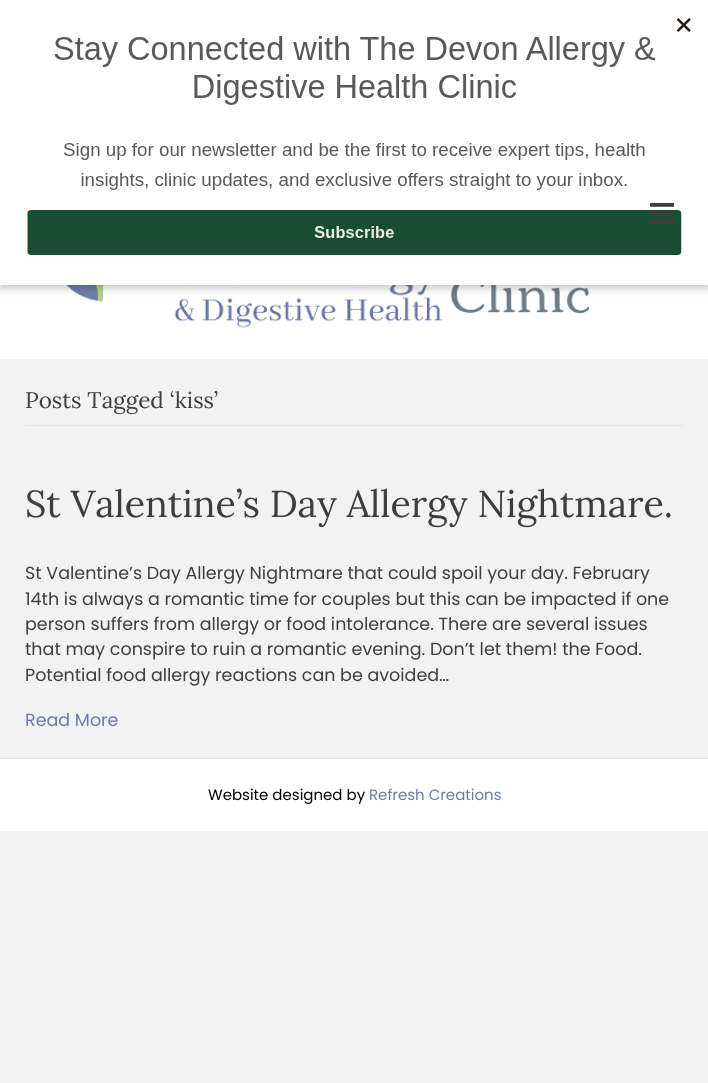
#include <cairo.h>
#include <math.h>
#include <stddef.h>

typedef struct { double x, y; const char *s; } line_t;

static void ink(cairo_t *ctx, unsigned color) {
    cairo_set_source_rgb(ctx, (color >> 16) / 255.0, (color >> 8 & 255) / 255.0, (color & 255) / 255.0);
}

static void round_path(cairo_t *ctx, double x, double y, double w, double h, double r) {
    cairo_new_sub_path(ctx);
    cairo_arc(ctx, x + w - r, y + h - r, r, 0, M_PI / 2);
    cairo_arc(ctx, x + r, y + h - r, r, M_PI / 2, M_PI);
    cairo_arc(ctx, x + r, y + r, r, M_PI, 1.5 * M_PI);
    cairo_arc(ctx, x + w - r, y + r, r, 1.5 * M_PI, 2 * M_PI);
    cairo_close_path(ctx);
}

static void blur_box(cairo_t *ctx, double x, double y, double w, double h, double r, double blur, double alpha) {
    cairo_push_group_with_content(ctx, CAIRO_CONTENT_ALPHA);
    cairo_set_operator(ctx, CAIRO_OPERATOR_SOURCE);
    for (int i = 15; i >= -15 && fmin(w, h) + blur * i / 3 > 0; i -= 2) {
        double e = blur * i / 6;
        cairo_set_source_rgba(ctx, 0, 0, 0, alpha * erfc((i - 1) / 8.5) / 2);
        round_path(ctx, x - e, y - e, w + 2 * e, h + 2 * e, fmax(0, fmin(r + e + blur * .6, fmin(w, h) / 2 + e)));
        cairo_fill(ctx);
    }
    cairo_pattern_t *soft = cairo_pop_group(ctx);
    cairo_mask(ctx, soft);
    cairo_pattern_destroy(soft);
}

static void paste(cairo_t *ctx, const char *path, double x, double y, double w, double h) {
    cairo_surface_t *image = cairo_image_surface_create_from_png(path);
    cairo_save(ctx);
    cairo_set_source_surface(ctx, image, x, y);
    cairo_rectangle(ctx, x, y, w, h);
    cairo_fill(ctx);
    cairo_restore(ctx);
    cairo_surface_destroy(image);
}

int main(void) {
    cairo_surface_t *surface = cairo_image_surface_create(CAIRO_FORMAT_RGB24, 708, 1083);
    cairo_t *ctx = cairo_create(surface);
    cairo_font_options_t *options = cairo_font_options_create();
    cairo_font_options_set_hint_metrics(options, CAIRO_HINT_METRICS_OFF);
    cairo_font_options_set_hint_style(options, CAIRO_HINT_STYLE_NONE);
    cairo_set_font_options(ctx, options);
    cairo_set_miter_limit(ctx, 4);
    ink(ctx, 0xF2F2F2);
    cairo_paint(ctx);
    ink(ctx, 0xFFFFFF);
    cairo_rectangle(ctx, 0, 285, 708, 74);
    cairo_fill(ctx);
    paste(ctx, "media/3.png", 66, 285, 524, 43);
    ink(ctx, 0x000000);
    blur_box(ctx, 0, 4, 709, 285, 0, 4, 0.2);
    ink(ctx, 0xFFFFFF);
    cairo_rectangle(ctx, 0, 0, 708, 285);
    cairo_fill(ctx);
    paste(ctx, "media/1.png", 27, 18, 664, 237);
    paste(ctx, "media/2.png", 650, 202, 25, 22);
    ink(ctx, 0xE6E6E6);
    cairo_rectangle(ctx, 25, 425, 659, 1);
    cairo_fill(ctx);
    cairo_select_font_face(ctx, "Lora", CAIRO_FONT_SLANT_NORMAL, CAIRO_FONT_WEIGHT_NORMAL);
    cairo_set_font_size(ctx, 22.5);
    ink(ctx, 0x3D3D3D);
    cairo_move_to(ctx, 25, 408);
    cairo_show_text(ctx, "Posts Tagged ‘kiss’");
    cairo_set_font_size(ctx, 37.5);
    cairo_move_to(ctx, 25, 517);
    cairo_show_text(ctx, "St Valentine’s Day Allergy Nightmare.");
    cairo_select_font_face(ctx, "Poppins", CAIRO_FONT_SLANT_NORMAL, CAIRO_FONT_WEIGHT_NORMAL);
    cairo_set_font_size(ctx, 17.5);
    {
        static const line_t items[] = {
            {25, 579, "St Valentine’s Day Allergy Nightmare that could spoil your day. February"},
            {25, 605, "14th is always a romantic time for couples but this can be impacted if one"},
            {25, 630, "person suffers from allergy or food intolerance. There are several issues"},
            {25, 655, "that may conspire to ruin a romantic evening. Don’t let them! the Food."},
            {25, 681, "Potential food allergy reactions can be avoided…"},
        };
        for (size_t i = 0; i < sizeof items / sizeof *items; i++) {
            cairo_move_to(ctx, items[i].x, items[i].y);
            cairo_show_text(ctx, items[i].s);
        }
    }
    ink(ctx, 0x6B79A7);
    cairo_move_to(ctx, 25, 726);
    cairo_show_text(ctx, "Read More");
    ink(ctx, 0xFFFFFF);
    cairo_rectangle(ctx, 0, 759, 708, 72);
    cairo_fill(ctx);
    ink(ctx, 0xE6E6E6);
    cairo_rectangle(ctx, 0, 758, 708, 1);
    cairo_fill(ctx);
    cairo_set_font_size(ctx, 15);
    ink(ctx, 0x000000);
    cairo_move_to(ctx, 208, 800);
    cairo_show_text(ctx, "Website designed by");
    ink(ctx, 0x6B79A7);
    cairo_move_to(ctx, 369, 800);
    cairo_show_text(ctx, "Refresh Creations");
    cairo_surface_write_to_png(surface, "image.png");
    cairo_font_options_destroy(options);
    cairo_destroy(ctx);
    cairo_surface_destroy(surface);
    return 0;
}
